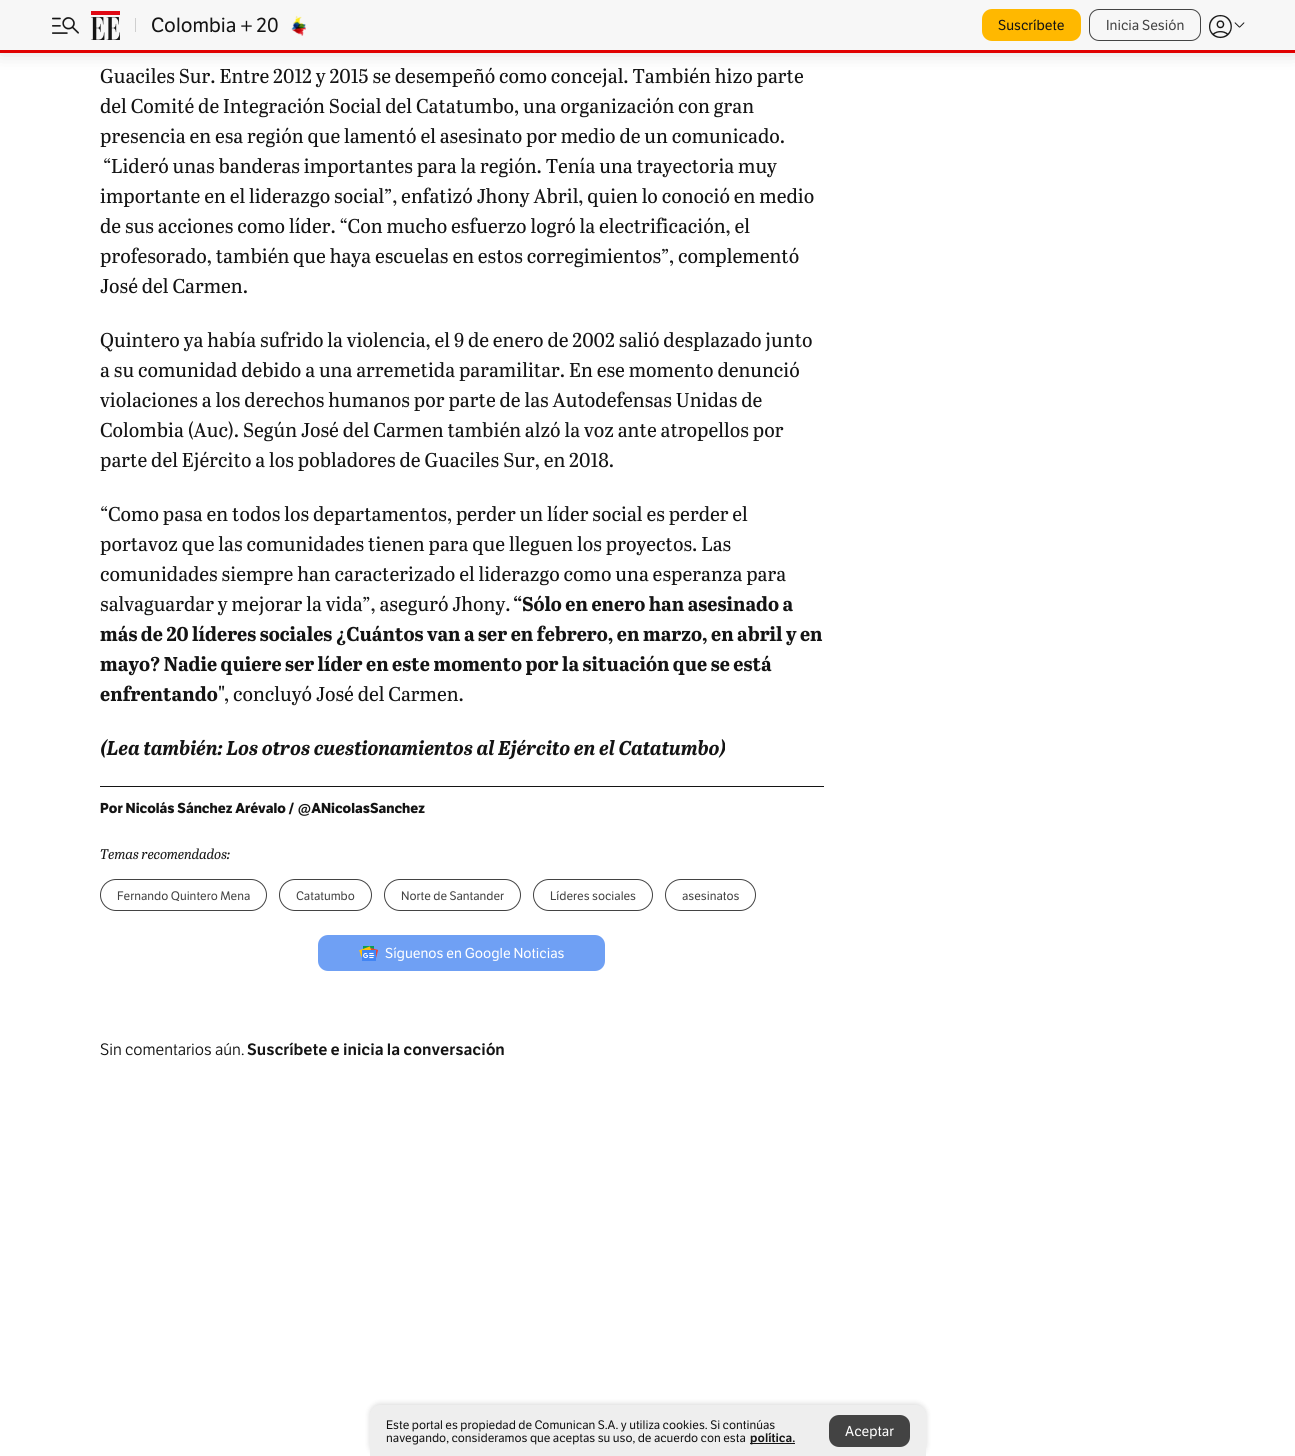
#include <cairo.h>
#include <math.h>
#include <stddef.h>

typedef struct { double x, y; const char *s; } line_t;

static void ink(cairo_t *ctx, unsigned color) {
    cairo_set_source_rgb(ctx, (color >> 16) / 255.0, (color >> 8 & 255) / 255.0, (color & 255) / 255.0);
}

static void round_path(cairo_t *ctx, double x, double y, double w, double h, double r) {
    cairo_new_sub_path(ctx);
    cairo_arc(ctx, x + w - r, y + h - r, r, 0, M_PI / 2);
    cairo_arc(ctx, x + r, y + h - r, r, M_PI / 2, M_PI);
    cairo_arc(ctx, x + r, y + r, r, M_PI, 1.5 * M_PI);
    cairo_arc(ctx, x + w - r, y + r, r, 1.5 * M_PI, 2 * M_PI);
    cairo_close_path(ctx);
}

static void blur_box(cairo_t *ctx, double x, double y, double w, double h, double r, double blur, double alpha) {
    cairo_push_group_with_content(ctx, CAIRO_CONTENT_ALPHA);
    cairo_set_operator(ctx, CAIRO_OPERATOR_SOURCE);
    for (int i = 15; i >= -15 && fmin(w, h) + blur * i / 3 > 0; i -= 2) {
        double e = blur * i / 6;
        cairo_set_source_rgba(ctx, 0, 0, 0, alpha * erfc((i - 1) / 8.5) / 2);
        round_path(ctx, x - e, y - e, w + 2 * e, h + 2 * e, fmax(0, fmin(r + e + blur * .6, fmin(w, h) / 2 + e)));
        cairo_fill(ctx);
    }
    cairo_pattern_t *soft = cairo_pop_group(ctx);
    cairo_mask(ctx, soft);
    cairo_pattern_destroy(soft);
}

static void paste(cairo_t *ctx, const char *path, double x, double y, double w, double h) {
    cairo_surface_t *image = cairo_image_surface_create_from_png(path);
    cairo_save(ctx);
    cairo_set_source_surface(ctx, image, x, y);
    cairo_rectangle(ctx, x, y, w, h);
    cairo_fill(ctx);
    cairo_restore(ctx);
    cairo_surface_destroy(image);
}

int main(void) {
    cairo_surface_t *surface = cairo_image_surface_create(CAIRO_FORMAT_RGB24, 1295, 1456);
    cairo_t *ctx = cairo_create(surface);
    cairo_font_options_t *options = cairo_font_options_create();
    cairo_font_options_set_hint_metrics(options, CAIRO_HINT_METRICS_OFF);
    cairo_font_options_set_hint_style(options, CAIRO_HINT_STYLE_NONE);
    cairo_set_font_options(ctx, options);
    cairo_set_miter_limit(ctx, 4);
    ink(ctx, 0xFFFFFF);
    cairo_paint(ctx);
    ink(ctx, 0x000000);
    blur_box(ctx, 0, 2, 1295, 50, 0, 10, 0.16);
    ink(ctx, 0xF7F7F7);
    cairo_rectangle(ctx, 0, 0, 1295, 50);
    cairo_fill(ctx);
    paste(ctx, "media/1.png", 52, 17, 27, 17);
    paste(ctx, "media/2.png", 91, 11, 29, 29);
    ink(ctx, 0xCFCFCF);
    cairo_rectangle(ctx, 135, 18, 1, 14);
    cairo_fill(ctx);
    cairo_select_font_face(ctx, "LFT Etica", CAIRO_FONT_SLANT_NORMAL, CAIRO_FONT_WEIGHT_NORMAL);
    cairo_set_font_size(ctx, 20);
    ink(ctx, 0x141414);
    cairo_move_to(ctx, 151, 32);
    cairo_show_text(ctx, "Colombia + 20");
    paste(ctx, "media/3.png", 291, 15, 15, 21);
    ink(ctx, 0xFFB800);
    round_path(ctx, 982, 9, 99, 32, 10);
    cairo_fill(ctx);
    cairo_set_font_size(ctx, 14);
    ink(ctx, 0x141414);
    cairo_move_to(ctx, 998, 30);
    cairo_show_text(ctx, "Suscríbete");
    round_path(ctx, 1089.5, 9.5, 111, 31, 9.5);
    ink(ctx, 0x434343);
    cairo_set_line_width(ctx, 1);
    cairo_stroke(ctx);
    cairo_move_to(ctx, 1106, 30);
    cairo_show_text(ctx, "Inicia Sesión");
    paste(ctx, "media/4.png", 1209, 14, 23, 25);
    paste(ctx, "media/5.png", 1234, 22, 11, 6);
    ink(ctx, 0xE00000);
    cairo_rectangle(ctx, 0, 50, 1295, 3);
    cairo_fill(ctx);
    cairo_select_font_face(ctx, "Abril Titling", CAIRO_FONT_SLANT_NORMAL, CAIRO_FONT_WEIGHT_NORMAL);
    cairo_set_font_size(ctx, 20);
    ink(ctx, 0x141414);
    {
        static const line_t items[] = {
            {100, 83, "Guaciles Sur. Entre 2012 y 2015 se desempeñó como concejal. También hizo parte"},
            {100, 113, "del Comité de Integración Social del Catatumbo, una organización con gran"},
            {100, 143, "presencia en esa región que lamentó el asesinato por medio de un comunicado."},
            {103, 173, "“Lideró unas banderas importantes para la región. Tenía una trayectoria muy"},
            {100, 203, "importante en el liderazgo social”, enfatizó Jhony Abril, quien lo conoció en medio"},
            {100, 233, "de sus acciones como líder. “Con mucho esfuerzo logró la electrificación, el"},
            {100, 263, "profesorado, también que haya escuelas en estos corregimientos”, complementó"},
            {100, 293, "José del Carmen."},
            {100, 347, "Quintero ya había sufrido la violencia, el 9 de enero de 2002 salió desplazado junto"},
            {100, 377, "a su comunidad debido a una arremetida paramilitar. En ese momento denunció"},
            {100, 407, "violaciones a los derechos humanos por parte de las Autodefensas Unidas de"},
            {100, 437, "Colombia (Auc). Según José del Carmen también alzó la voz ante atropellos por"},
            {100, 467, "parte del Ejército a los pobladores de Guaciles Sur, en 2018."},
            {100, 521, "“Como pasa en todos los departamentos, perder un líder social es perder el"},
            {100, 551, "portavoz que las comunidades tienen para que lleguen los proyectos. Las"},
            {100, 581, "comunidades siempre han caracterizado el liderazgo como una esperanza para"},
            {100, 611, "salvaguardar y mejorar la vida”, aseguró Jhony."},
        };
        for (size_t i = 0; i < sizeof items / sizeof *items; i++) {
            cairo_move_to(ctx, items[i].x, items[i].y);
            cairo_show_text(ctx, items[i].s);
        }
    }
    cairo_select_font_face(ctx, "Abril Titling", CAIRO_FONT_SLANT_NORMAL, CAIRO_FONT_WEIGHT_BOLD);
    {
        static const line_t items[] = {
            {513, 611, "“Sólo en enero han asesinado a"},
            {100, 641, "más de 20 líderes sociales ¿Cuántos van a ser en febrero, en marzo, en abril y en"},
            {100, 671, "mayo? Nadie quiere ser líder en este momento por la situación que se está"},
            {100, 701, "enfrentando\""},
        };
        for (size_t i = 0; i < sizeof items / sizeof *items; i++) {
            cairo_move_to(ctx, items[i].x, items[i].y);
            cairo_show_text(ctx, items[i].s);
        }
    }
    cairo_select_font_face(ctx, "Abril Titling", CAIRO_FONT_SLANT_NORMAL, CAIRO_FONT_WEIGHT_NORMAL);
    cairo_move_to(ctx, 224, 701);
    cairo_show_text(ctx, ", concluyó José del Carmen.");
    cairo_select_font_face(ctx, "Abril Titling", CAIRO_FONT_SLANT_ITALIC, CAIRO_FONT_WEIGHT_BOLD);
    cairo_move_to(ctx, 100, 755);
    cairo_show_text(ctx, "(Lea también: Los otros cuestionamientos al Ejército en el Catatumbo)");
    cairo_rectangle(ctx, 100, 786, 724, 1);
    cairo_fill(ctx);
    cairo_select_font_face(ctx, "LFT Etica", CAIRO_FONT_SLANT_NORMAL, CAIRO_FONT_WEIGHT_BOLD);
    cairo_set_font_size(ctx, 14);
    cairo_move_to(ctx, 100, 813);
    cairo_show_text(ctx, "Por Nicolás Sánchez Arévalo / @ANicolasSanchez");
    cairo_select_font_face(ctx, "Abril Titling", CAIRO_FONT_SLANT_ITALIC, CAIRO_FONT_WEIGHT_NORMAL);
    cairo_move_to(ctx, 100, 859);
    cairo_show_text(ctx, "Temas recomendados:");
    round_path(ctx, 100.5, 879.5, 166, 31, 15.5);
    ink(ctx, 0x434343);
    cairo_stroke(ctx);
    cairo_select_font_face(ctx, "LFT Etica", CAIRO_FONT_SLANT_NORMAL, CAIRO_FONT_WEIGHT_NORMAL);
    cairo_set_font_size(ctx, 12);
    cairo_move_to(ctx, 117, 900);
    cairo_show_text(ctx, "Fernando Quintero Mena");
    round_path(ctx, 279.5, 879.5, 92, 31, 15.5);
    cairo_stroke(ctx);
    cairo_move_to(ctx, 296, 900);
    cairo_show_text(ctx, "Catatumbo");
    round_path(ctx, 384.5, 879.5, 136, 31, 15.5);
    cairo_stroke(ctx);
    cairo_move_to(ctx, 401, 900);
    cairo_show_text(ctx, "Norte de Santander");
    round_path(ctx, 533.5, 879.5, 119, 31, 15.5);
    cairo_stroke(ctx);
    cairo_move_to(ctx, 550, 900);
    cairo_show_text(ctx, "Líderes sociales");
    round_path(ctx, 665.5, 879.5, 90, 31, 15.5);
    cairo_stroke(ctx);
    cairo_move_to(ctx, 682, 900);
    cairo_show_text(ctx, "asesinatos");
    ink(ctx, 0x6FA0F4);
    round_path(ctx, 318, 935, 287, 36, 10);
    cairo_fill(ctx);
    paste(ctx, "media/6.png", 359, 946, 19, 15);
    cairo_set_font_size(ctx, 14);
    ink(ctx, 0xFFFFFF);
    cairo_move_to(ctx, 385, 958);
    cairo_show_text(ctx, "Síguenos en Google Noticias");
    cairo_select_font_face(ctx, "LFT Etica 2", CAIRO_FONT_SLANT_NORMAL, CAIRO_FONT_WEIGHT_NORMAL);
    cairo_set_font_size(ctx, 16);
    ink(ctx, 0x141414);
    cairo_move_to(ctx, 100, 1055);
    cairo_show_text(ctx, "Sin comentarios aún.");
    cairo_select_font_face(ctx, "LFT Etica SemiBold", CAIRO_FONT_SLANT_NORMAL, CAIRO_FONT_WEIGHT_NORMAL);
    cairo_move_to(ctx, 247, 1055);
    cairo_show_text(ctx, "Suscríbete e inicia la conversación");
    ink(ctx, 0x000000);
    blur_box(ctx, 370, 1404, 556, 51, 10, 3, 0.16);
    ink(ctx, 0xEEEEEE);
    cairo_new_path(ctx);
    cairo_move_to(ctx, 380, 1405);
    cairo_line_to(ctx, 916, 1405);
    cairo_curve_to(ctx, 921.5, 1405, 926, 1409.5, 926, 1415);
    cairo_line_to(ctx, 926, 1456);
    cairo_line_to(ctx, 370, 1456);
    cairo_line_to(ctx, 370, 1415);
    cairo_curve_to(ctx, 370, 1409.5, 374.5, 1405, 380, 1405);
    cairo_close_path(ctx);
    cairo_fill(ctx);
    cairo_select_font_face(ctx, "LFT Etica", CAIRO_FONT_SLANT_NORMAL, CAIRO_FONT_WEIGHT_NORMAL);
    cairo_set_font_size(ctx, 12);
    ink(ctx, 0x141414);
    cairo_move_to(ctx, 386, 1429);
    cairo_show_text(ctx, "Este portal es propiedad de Comunican S.A. y utiliza cookies. Si continúas");
    cairo_move_to(ctx, 386, 1442);
    cairo_show_text(ctx, "navegando, consideramos que aceptas su uso, de acuerdo con esta");
    cairo_rectangle(ctx, 750, 1443, 45, 1);
    cairo_fill(ctx);
    cairo_select_font_face(ctx, "LFT Etica SemiBold", CAIRO_FONT_SLANT_NORMAL, CAIRO_FONT_WEIGHT_NORMAL);
    cairo_move_to(ctx, 750, 1442);
    cairo_show_text(ctx, "política.");
    ink(ctx, 0x434343);
    round_path(ctx, 829, 1415, 81, 32, 10);
    cairo_fill(ctx);
    cairo_select_font_face(ctx, "LFT Etica", CAIRO_FONT_SLANT_NORMAL, CAIRO_FONT_WEIGHT_NORMAL);
    cairo_set_font_size(ctx, 14);
    ink(ctx, 0xFFFFFF);
    cairo_move_to(ctx, 845, 1436);
    cairo_show_text(ctx, "Aceptar");
    cairo_surface_write_to_png(surface, "image.png");
    cairo_font_options_destroy(options);
    cairo_destroy(ctx);
    cairo_surface_destroy(surface);
    return 0;
}
